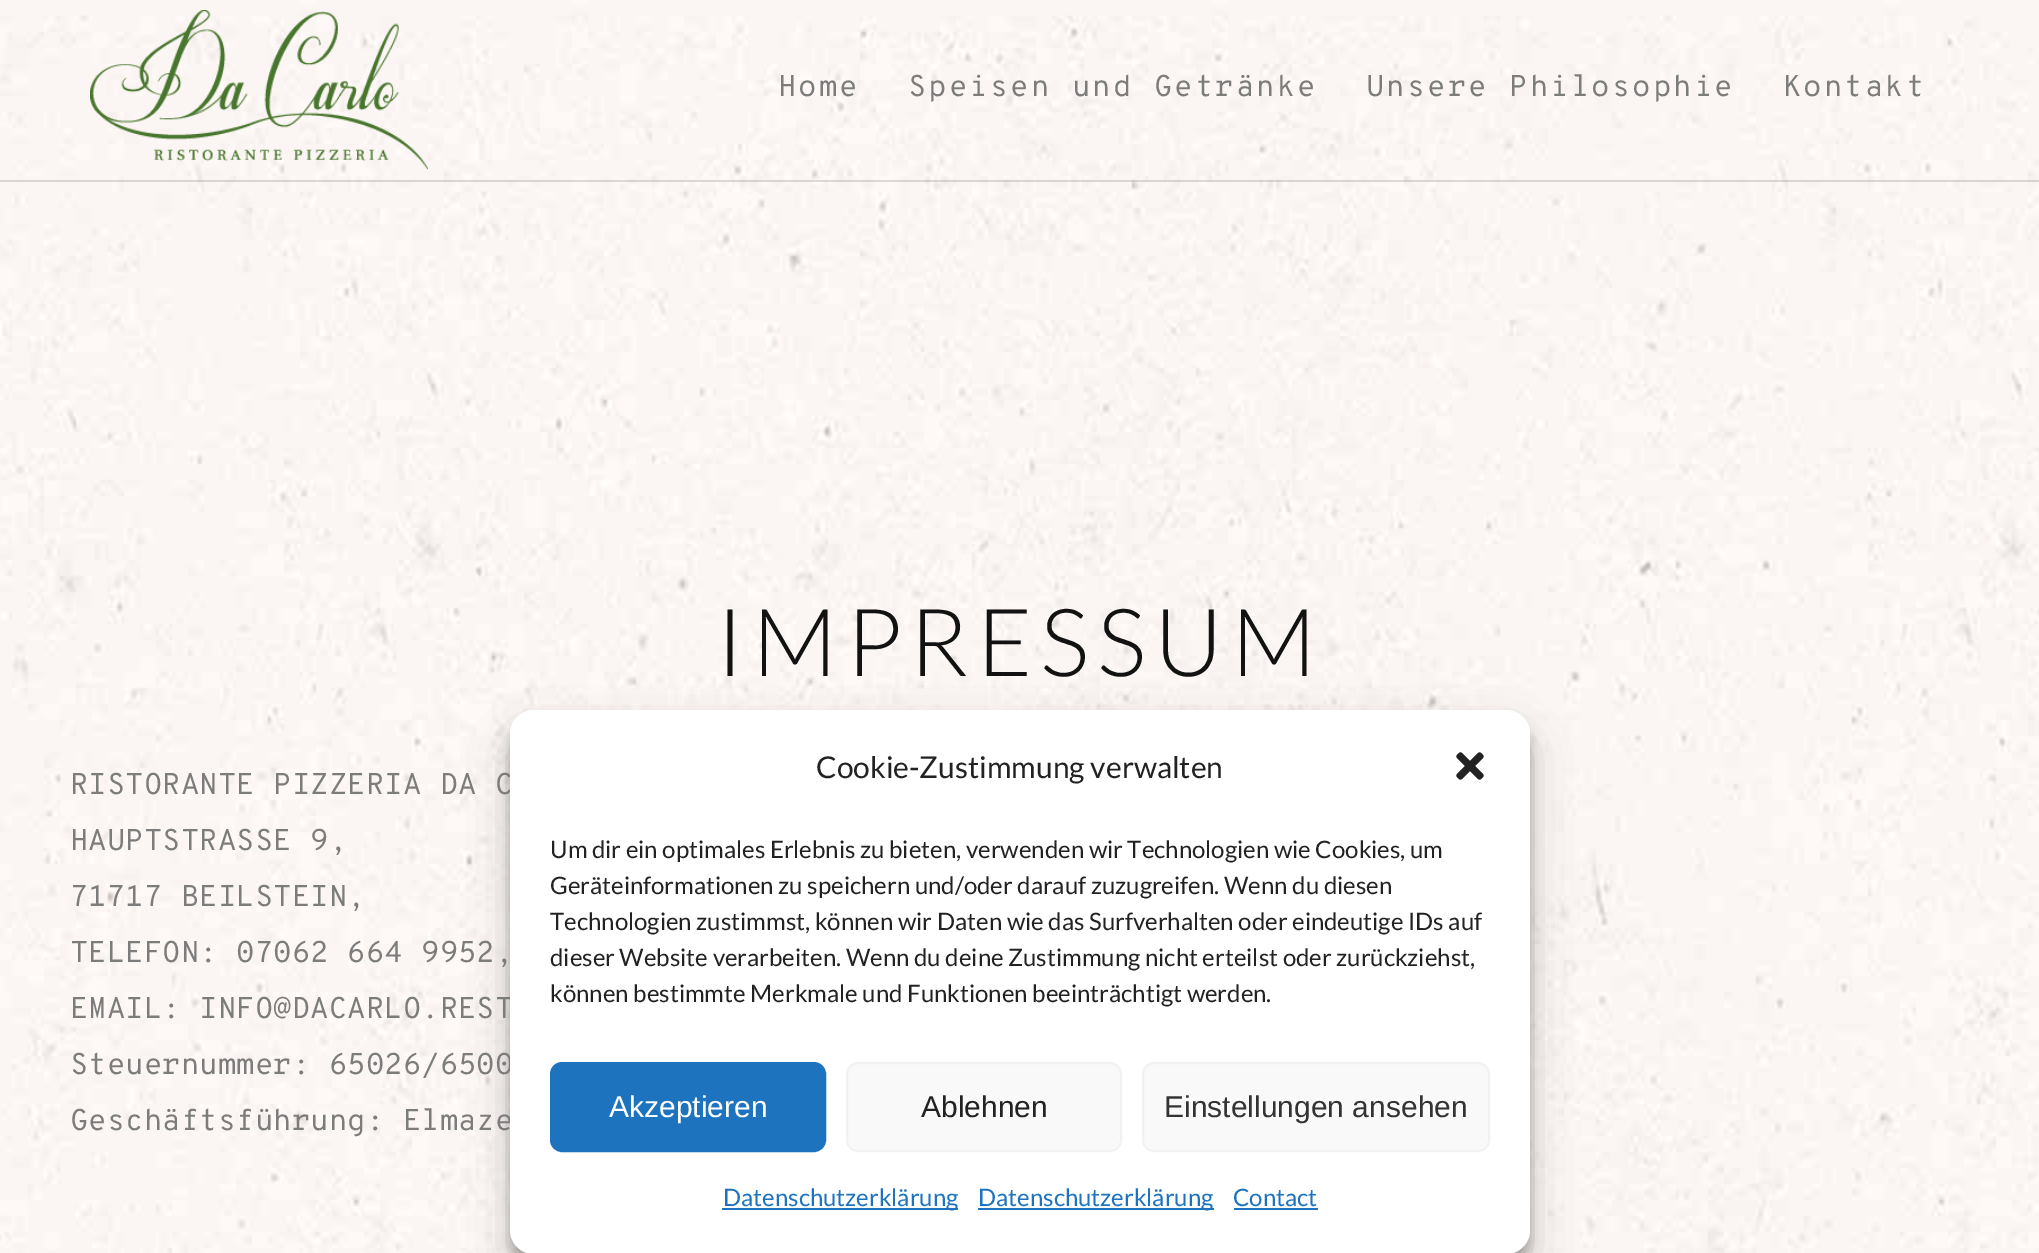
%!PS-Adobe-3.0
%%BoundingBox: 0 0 2039 1253
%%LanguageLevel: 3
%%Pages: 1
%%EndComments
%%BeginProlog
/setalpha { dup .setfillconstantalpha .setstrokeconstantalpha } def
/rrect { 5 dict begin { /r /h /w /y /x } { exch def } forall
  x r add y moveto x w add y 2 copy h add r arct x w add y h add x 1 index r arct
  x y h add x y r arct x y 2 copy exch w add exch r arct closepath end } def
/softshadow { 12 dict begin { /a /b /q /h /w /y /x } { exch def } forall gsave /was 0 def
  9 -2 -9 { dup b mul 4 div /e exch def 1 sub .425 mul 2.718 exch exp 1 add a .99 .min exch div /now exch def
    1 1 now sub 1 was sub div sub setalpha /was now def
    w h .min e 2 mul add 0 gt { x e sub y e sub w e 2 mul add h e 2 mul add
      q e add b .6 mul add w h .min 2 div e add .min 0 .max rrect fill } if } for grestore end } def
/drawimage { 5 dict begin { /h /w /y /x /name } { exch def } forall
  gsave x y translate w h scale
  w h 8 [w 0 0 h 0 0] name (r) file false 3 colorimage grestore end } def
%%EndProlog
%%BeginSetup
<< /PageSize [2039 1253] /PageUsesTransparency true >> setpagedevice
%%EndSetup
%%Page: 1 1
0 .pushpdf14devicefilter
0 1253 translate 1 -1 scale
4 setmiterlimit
1 setgray
0 0 2039 1253 rectfill
(images/1.raw) 0 0 2039 1253 drawimage
0.15 setalpha
0.098 setgray
0 180 2039 2 rectfill
1 setalpha
(images/2.raw) 90 10 338 160 drawimage
0 setgray
510 722 1020 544 24 6 0.23 softshadow
510 730 1020 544 24 20 0.19 softshadow
/OverpassMono-Regular [30 0 0 -30 0 0] selectfont
0.486 setgray
778 96 moveto 2 0 (Home) ashow
908 96 moveto 2 0 (Speisen und Getränke) ashow
1366 96 moveto 2 0 (Unsere Philosophie) ashow
1783 96 moveto 2 0 (Kontakt) ashow
/Lato-Light [94 0 0 -94 0 0] selectfont
0.071 setgray
716 676 moveto 8 0 (IMPRESSUM) ashow
/OverpassMono-Regular [30 0 0 -30 0 0] selectfont
0.486 setgray
70 794 moveto (RISTORANTE PIZZERIA DA C) show
70 850 moveto (HAUPTSTRASSE 9,) show
70 906 moveto (71717 BEILSTEIN,) show
70 962 moveto (TELEFON: 07062 664 9952,) show
70 1018 moveto (EMAIL: INFO@DACARLO.REST) show
70 1074 moveto (Steuernummer: 65026/6500) show
70 1130 moveto (Geschäftsführung: Elmaze) show
1 setgray
510 710 1020 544 24 rrect fill
/Lato-Regular [30 0 0 -30 0 0] selectfont
0.133 setgray
816 778 moveto (Cookie-Zustimmung verwalten) show
(images/3.raw) 1456 752 28 28 drawimage
/Lato-Regular [24 0 0 -24 0 0] selectfont
550 858 moveto (Um dir ein optimales Erlebnis zu bieten, verwenden wir Technologien wie Cookies, um) show
550 894 moveto (Geräteinformationen zu speichern und/oder darauf zuzugreifen. Wenn du diesen) show
550 930 moveto (Technologien zustimmst, können wir Daten wie das Surfverhalten oder eindeutige IDs auf) show
550 966 moveto (dieser Website verarbeiten. Wenn du deine Zustimmung nicht erteilst oder zurückziehst,) show
550 1002 moveto (können bestimmte Merkmale und Funktionen beeinträchtigt werden.) show
0.118 0.451 0.745 setrgbcolor
551 1063 274 88 11 rrect gsave fill grestore
2 setlinewidth
stroke
/LiberationSans-Regular [30 0 0 -30 0 0] selectfont
1 setgray
609 1117 moveto (Akzeptieren) show
0.976 setgray
847 1063 274 88 11 rrect gsave fill grestore
0.949 setgray
stroke
0.133 setgray
921 1117 moveto (Ablehnen) show
0.976 setgray
1143 1063 346 88 11 rrect gsave fill grestore
0.949 setgray
stroke
0.2 setgray
1164 1117 moveto (Einstellungen ansehen) show
0.118 0.451 0.745 setrgbcolor
722 1208 236 2 rectfill
/Lato-Regular [24 0 0 -24 0 0] selectfont
723 1206 moveto (Datenschutzerklärung) show
978 1208 236 2 rectfill
978 1206 moveto (Datenschutzerklärung) show
1233 1206 moveto (Contact) show
1234 1208 84 2 rectfill
.poppdf14devicefilter showpage
%%EOF
